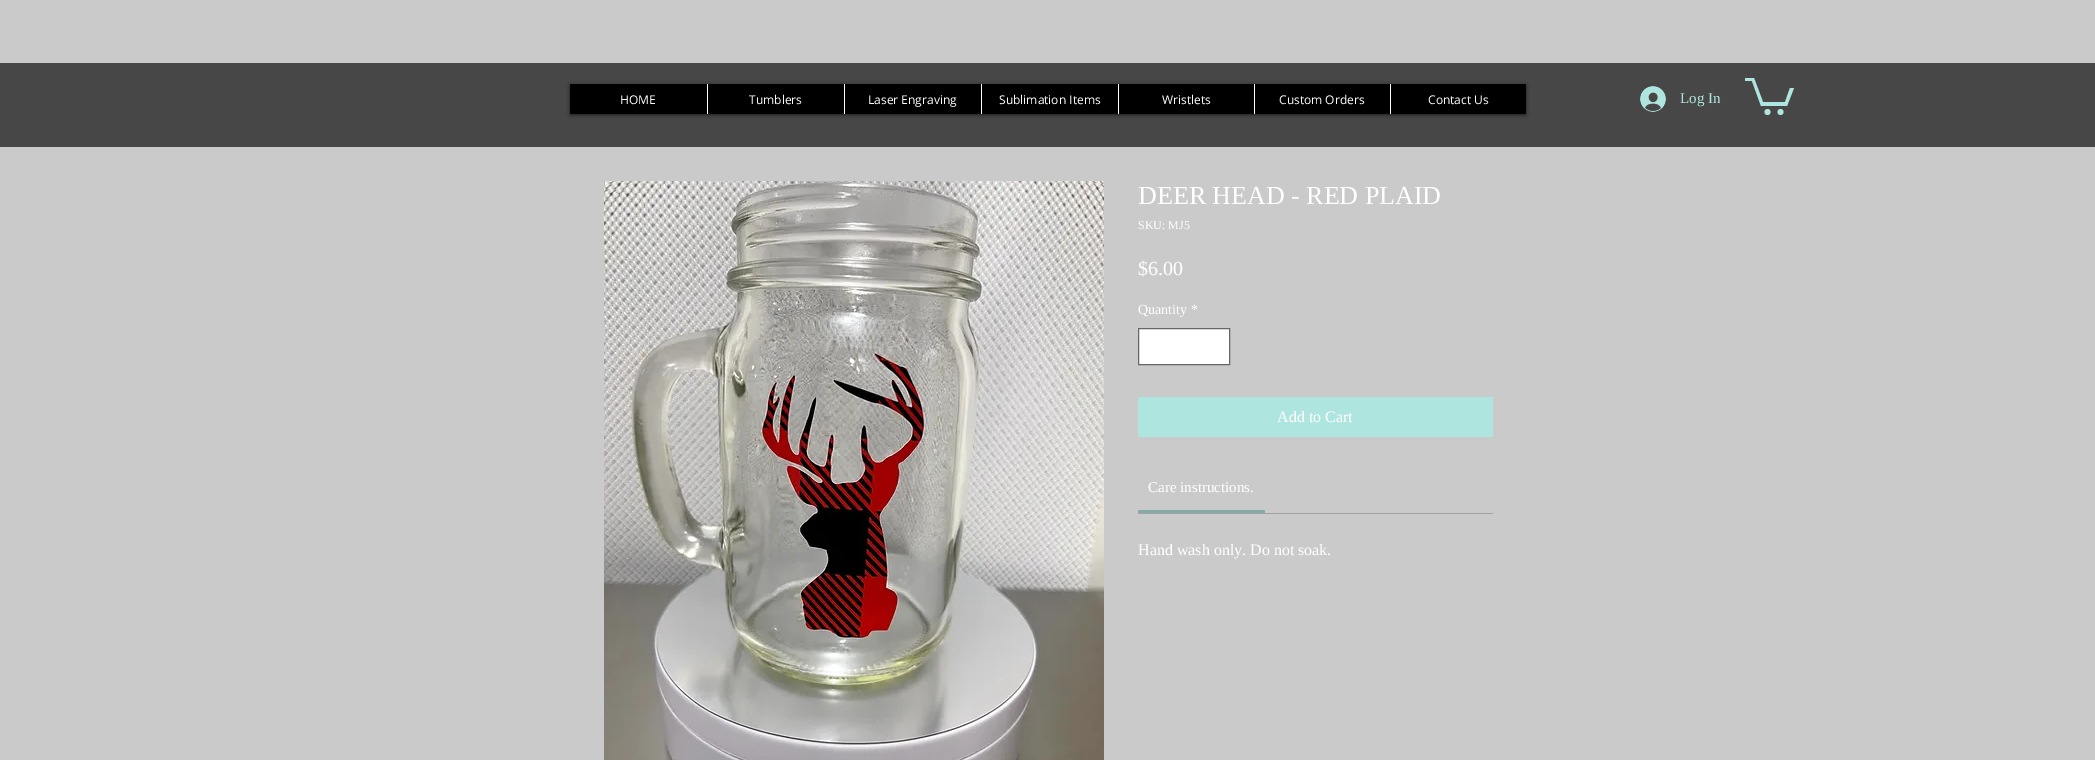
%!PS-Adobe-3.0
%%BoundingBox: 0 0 2095 760
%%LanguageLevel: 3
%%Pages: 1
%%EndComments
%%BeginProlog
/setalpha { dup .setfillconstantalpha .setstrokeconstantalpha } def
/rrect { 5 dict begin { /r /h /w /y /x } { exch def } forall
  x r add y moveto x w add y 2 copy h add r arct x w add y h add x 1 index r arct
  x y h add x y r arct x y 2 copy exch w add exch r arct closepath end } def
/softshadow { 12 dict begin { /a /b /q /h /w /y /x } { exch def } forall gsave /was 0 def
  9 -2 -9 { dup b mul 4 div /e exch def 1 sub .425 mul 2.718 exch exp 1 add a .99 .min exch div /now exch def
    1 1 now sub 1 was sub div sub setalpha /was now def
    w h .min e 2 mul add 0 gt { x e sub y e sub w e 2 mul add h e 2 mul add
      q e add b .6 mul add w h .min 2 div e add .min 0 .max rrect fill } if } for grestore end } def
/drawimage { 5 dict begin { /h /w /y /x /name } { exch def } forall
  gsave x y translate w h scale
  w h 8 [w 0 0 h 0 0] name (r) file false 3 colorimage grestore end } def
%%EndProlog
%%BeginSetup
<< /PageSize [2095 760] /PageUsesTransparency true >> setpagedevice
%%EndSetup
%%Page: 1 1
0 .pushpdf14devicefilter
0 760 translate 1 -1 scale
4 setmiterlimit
0.792 setgray
0 0 2095 760 rectfill
0.278 setgray
0 63 2095 84 rectfill
0 setgray
570 85 956 30 0 2 0.6 softshadow
570 84 956 30 rectfill
1 setgray
707 84 1 30 rectfill
844 84 1 30 rectfill
981 84 1 30 rectfill
1118 84 1 30 rectfill
1254 84 1 30 rectfill
1390 84 1 30 rectfill
(images/1.raw) 1640 86 26 26 drawimage
0.686 0.898 0.875 setrgbcolor
newpath 1794 88 moveto 1787 106 lineto 1761 106 lineto 1752 81 lineto 1745 81 lineto 1745 78 lineto 1754 78 lineto 1763 102 lineto 1785 102 lineto 1790 88 lineto fill
newpath 1780.5 112 3 0 360 arc closepath fill
newpath 1767.5 112 3 0 360 arc closepath fill
(images/2.raw) 604 181 500 579 drawimage
1 setgray
newpath 1138.5 328.5 moveto 1229.5 328.5 lineto 1229.5 364.5 lineto 1138.5 364.5 lineto closepath gsave fill grestore
0.4 setgray
stroke
0.686 0.898 0.875 setrgbcolor
1138 397 355 40 rectfill
0.635 setgray
1138 513 355 1 rectfill
0.514 0.675 0.655 setrgbcolor
1138 510 127 3 rectfill
/OpenSans-Regular [12 0 0 -12 0 0] selectfont
1 setgray
620 104 moveto (HOME) show
749 104 moveto (Tumblers) show
868 104 moveto (Laser Engraving) show
999 104 moveto (Sublimation Items) show
1162 104 moveto (Wristlets) show
1279 104 moveto (Custom Orders) show
1428 104 moveto (Contact Us) show
/LiberationSerif-Regular [15 0 0 -15 0 0] selectfont
0.686 0.898 0.875 setrgbcolor
1680 103 moveto (Log In) show
/LiberationSerif-Regular [26 0 0 -26 0 0] selectfont
1 setgray
1138 204 moveto (DEER HEAD - RED PLAID) show
/LiberationSerif-Regular [12 0 0 -12 0 0] selectfont
1138 229 moveto (SKU: MJ5) show
/LiberationSerif-Regular [20 0 0 -20 0 0] selectfont
1138 275 moveto ($6.00) show
/LiberationSerif-Regular [14 0 0 -14 0 0] selectfont
1138 314 moveto (Quantity) show
1191 314 moveto (*) show
/LiberationSerif-Regular [16 0 0 -16 0 0] selectfont
1277 422 moveto (Add to Cart) show
/LiberationSerif-Regular [15 0 0 -15 0 0] selectfont
1148 492 moveto (Care instructions.) show
/LiberationSerif-Regular [16 0 0 -16 0 0] selectfont
1138 555 moveto (Hand wash only. Do not soak.) show
.poppdf14devicefilter showpage
%%EOF
